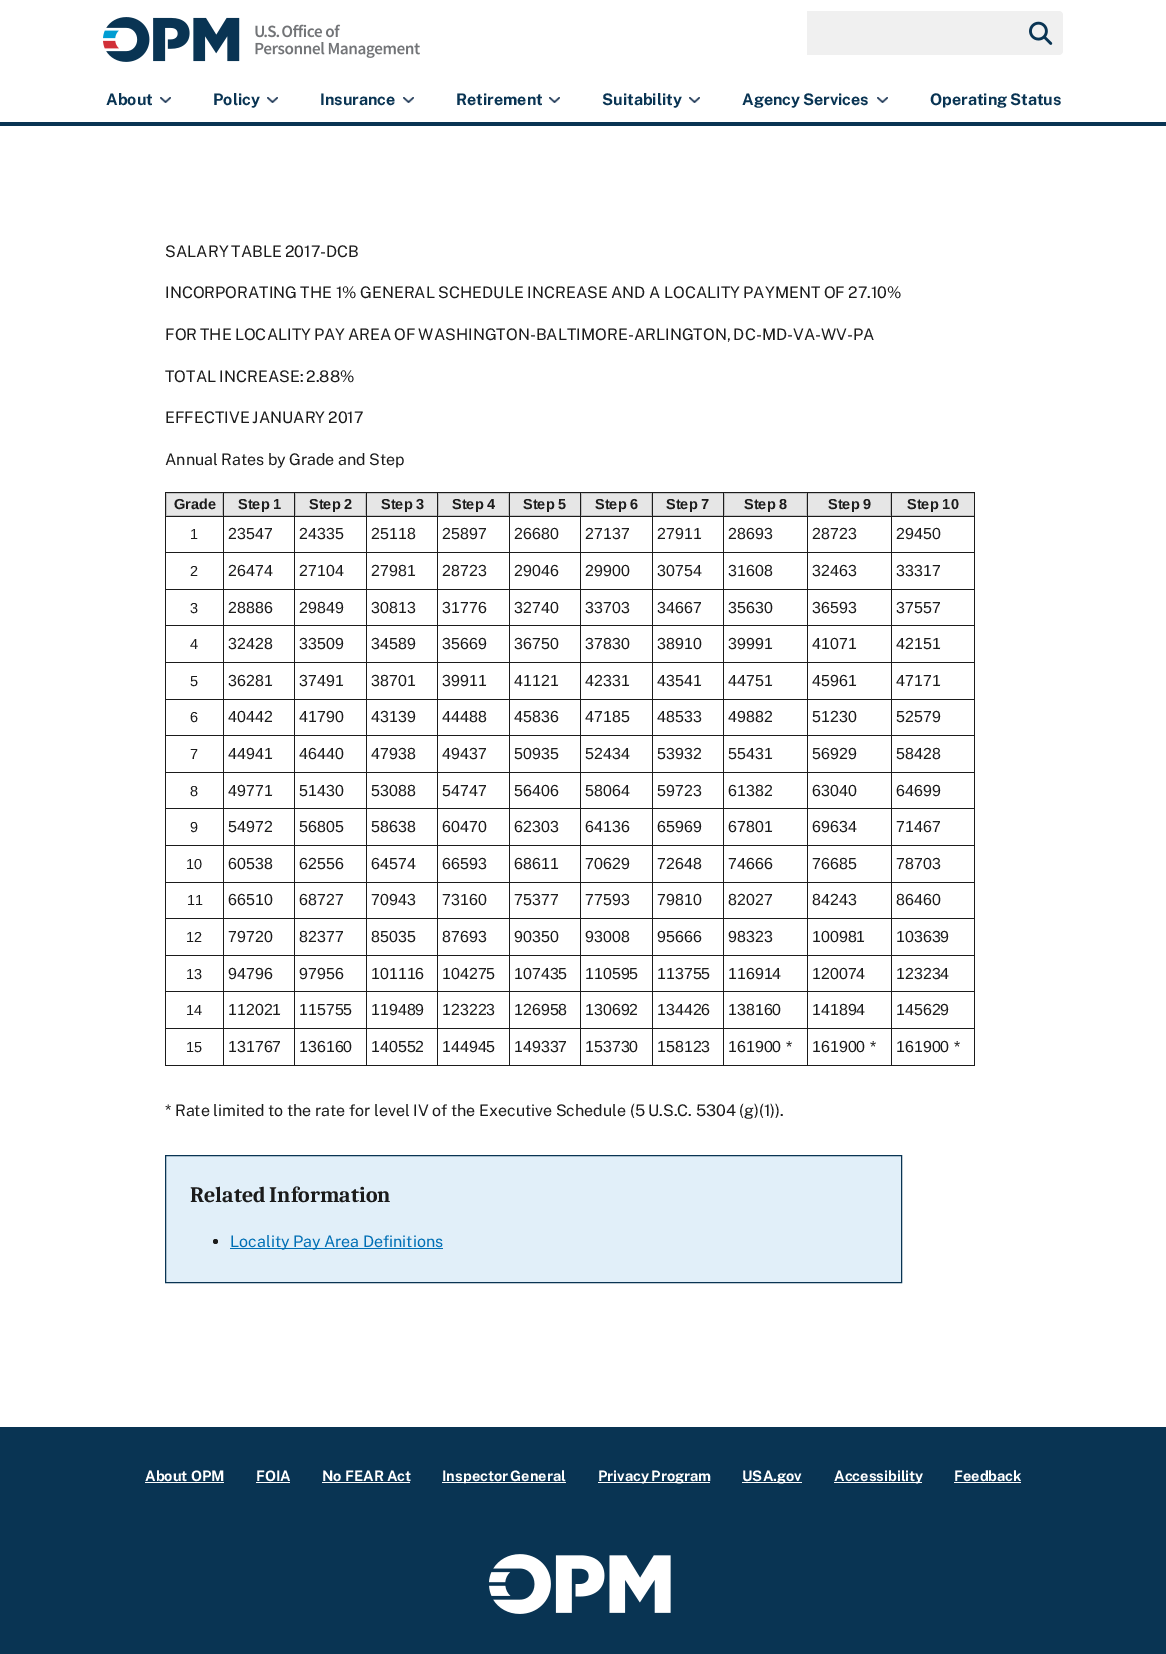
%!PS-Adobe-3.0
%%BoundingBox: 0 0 1166 1654
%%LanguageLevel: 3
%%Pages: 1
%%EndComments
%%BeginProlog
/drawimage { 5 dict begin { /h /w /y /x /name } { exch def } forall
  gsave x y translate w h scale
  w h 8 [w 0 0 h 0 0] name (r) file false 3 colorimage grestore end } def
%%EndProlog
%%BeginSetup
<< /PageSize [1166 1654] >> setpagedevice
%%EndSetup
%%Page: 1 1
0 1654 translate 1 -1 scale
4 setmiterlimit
1 setgray
0 0 1166 1654 rectfill
0.035 0.204 0.325 setrgbcolor
0 122 1166 4 rectfill
(images/1.raw) 103 17 317 45 drawimage
0.941 setgray
807 11 208 44 rectfill
newpath 1015 11 moveto 1059 11 lineto 1061 11 1063 13 1063 15 curveto 1063 51 lineto 1063 53 1061 55 1059 55 curveto 1015 55 lineto closepath fill
(images/2.raw) 1029 21 24 24 drawimage
(images/3.raw) 160 97 11 6 drawimage
(images/3.raw) 267 97 11 6 drawimage
(images/3.raw) 403 97 11 6 drawimage
(images/3.raw) 549 97 11 6 drawimage
(images/3.raw) 689 97 11 6 drawimage
(images/3.raw) 877 97 11 6 drawimage
0.753 setgray
166 493 808 23 rectfill
0.902 setgray
167 494 55 21 rectfill
0.106 setgray
891 492 84 1 rectfill
891 516 84 1 rectfill
891 552 84 1 rectfill
891 589 84 1 rectfill
891 625 84 1 rectfill
891 662 84 1 rectfill
891 699 84 1 rectfill
891 735 84 1 rectfill
891 772 84 1 rectfill
891 808 84 1 rectfill
891 845 84 1 rectfill
891 882 84 1 rectfill
891 918 84 1 rectfill
891 955 84 1 rectfill
891 991 84 1 rectfill
891 1028 84 1 rectfill
974 1028 1 38 rectfill
891 1065 84 1 rectfill
891 1028 1 38 rectfill
807 1028 85 1 rectfill
891 991 1 38 rectfill
807 991 85 1 rectfill
891 955 1 37 rectfill
807 955 85 1 rectfill
891 918 1 38 rectfill
807 918 85 1 rectfill
891 882 1 37 rectfill
807 882 85 1 rectfill
891 845 1 38 rectfill
807 845 85 1 rectfill
891 808 1 38 rectfill
807 808 85 1 rectfill
891 772 1 37 rectfill
807 772 85 1 rectfill
891 735 1 38 rectfill
807 735 85 1 rectfill
891 699 1 37 rectfill
807 699 85 1 rectfill
891 662 1 38 rectfill
807 662 85 1 rectfill
891 625 1 38 rectfill
807 625 85 1 rectfill
891 589 1 37 rectfill
807 589 85 1 rectfill
891 552 1 38 rectfill
807 552 85 1 rectfill
891 516 1 37 rectfill
807 516 85 1 rectfill
891 492 1 25 rectfill
807 492 85 1 rectfill
807 1065 85 1 rectfill
807 1028 1 38 rectfill
723 1028 85 1 rectfill
807 991 1 38 rectfill
723 991 85 1 rectfill
807 955 1 37 rectfill
723 955 85 1 rectfill
807 918 1 38 rectfill
723 918 85 1 rectfill
807 882 1 37 rectfill
723 882 85 1 rectfill
807 845 1 38 rectfill
723 845 85 1 rectfill
807 808 1 38 rectfill
723 808 85 1 rectfill
807 772 1 37 rectfill
723 772 85 1 rectfill
807 735 1 38 rectfill
723 735 85 1 rectfill
807 699 1 37 rectfill
723 699 85 1 rectfill
807 662 1 38 rectfill
723 662 85 1 rectfill
807 625 1 38 rectfill
723 625 85 1 rectfill
807 589 1 37 rectfill
723 589 85 1 rectfill
807 552 1 38 rectfill
723 552 85 1 rectfill
807 516 1 37 rectfill
723 516 85 1 rectfill
807 492 1 25 rectfill
723 492 85 1 rectfill
723 1065 85 1 rectfill
723 1028 1 38 rectfill
652 1028 72 1 rectfill
723 991 1 38 rectfill
652 991 72 1 rectfill
723 955 1 37 rectfill
652 955 72 1 rectfill
723 918 1 38 rectfill
652 918 72 1 rectfill
723 882 1 37 rectfill
652 882 72 1 rectfill
723 845 1 38 rectfill
652 845 72 1 rectfill
723 808 1 38 rectfill
652 808 72 1 rectfill
723 772 1 37 rectfill
652 772 72 1 rectfill
723 735 1 38 rectfill
652 735 72 1 rectfill
723 699 1 37 rectfill
652 699 72 1 rectfill
723 662 1 38 rectfill
652 662 72 1 rectfill
723 625 1 38 rectfill
652 625 72 1 rectfill
723 589 1 37 rectfill
652 589 72 1 rectfill
723 552 1 38 rectfill
652 552 72 1 rectfill
723 516 1 37 rectfill
652 516 72 1 rectfill
723 492 1 25 rectfill
652 492 72 1 rectfill
652 1065 72 1 rectfill
652 1028 1 38 rectfill
580 1028 73 1 rectfill
652 991 1 38 rectfill
580 991 73 1 rectfill
652 955 1 37 rectfill
580 955 73 1 rectfill
652 918 1 38 rectfill
580 918 73 1 rectfill
652 882 1 37 rectfill
580 882 73 1 rectfill
652 845 1 38 rectfill
580 845 73 1 rectfill
652 808 1 38 rectfill
580 808 73 1 rectfill
652 772 1 37 rectfill
580 772 73 1 rectfill
652 735 1 38 rectfill
580 735 73 1 rectfill
652 699 1 37 rectfill
580 699 73 1 rectfill
652 662 1 38 rectfill
580 662 73 1 rectfill
652 625 1 38 rectfill
580 625 73 1 rectfill
652 589 1 37 rectfill
580 589 73 1 rectfill
652 552 1 38 rectfill
580 552 73 1 rectfill
652 516 1 37 rectfill
580 516 73 1 rectfill
652 492 1 25 rectfill
580 492 73 1 rectfill
580 1065 73 1 rectfill
580 1028 1 38 rectfill
509 1028 72 1 rectfill
580 991 1 38 rectfill
509 991 72 1 rectfill
580 955 1 37 rectfill
509 955 72 1 rectfill
580 918 1 38 rectfill
509 918 72 1 rectfill
580 882 1 37 rectfill
509 882 72 1 rectfill
580 845 1 38 rectfill
509 845 72 1 rectfill
580 808 1 38 rectfill
509 808 72 1 rectfill
580 772 1 37 rectfill
509 772 72 1 rectfill
580 735 1 38 rectfill
509 735 72 1 rectfill
580 699 1 37 rectfill
509 699 72 1 rectfill
580 662 1 38 rectfill
509 662 72 1 rectfill
580 625 1 38 rectfill
509 625 72 1 rectfill
580 589 1 37 rectfill
509 589 72 1 rectfill
580 552 1 38 rectfill
509 552 72 1 rectfill
580 516 1 37 rectfill
509 516 72 1 rectfill
580 492 1 25 rectfill
509 492 72 1 rectfill
509 1065 72 1 rectfill
509 1028 1 38 rectfill
437 1028 73 1 rectfill
509 991 1 38 rectfill
437 991 73 1 rectfill
509 955 1 37 rectfill
437 955 73 1 rectfill
509 918 1 38 rectfill
437 918 73 1 rectfill
509 882 1 37 rectfill
437 882 73 1 rectfill
509 845 1 38 rectfill
437 845 73 1 rectfill
509 808 1 38 rectfill
437 808 73 1 rectfill
509 772 1 37 rectfill
437 772 73 1 rectfill
509 735 1 38 rectfill
437 735 73 1 rectfill
509 699 1 37 rectfill
437 699 73 1 rectfill
509 662 1 38 rectfill
437 662 73 1 rectfill
509 625 1 38 rectfill
437 625 73 1 rectfill
509 589 1 37 rectfill
437 589 73 1 rectfill
509 552 1 38 rectfill
437 552 73 1 rectfill
509 516 1 37 rectfill
437 516 73 1 rectfill
509 492 1 25 rectfill
437 492 73 1 rectfill
437 1065 73 1 rectfill
437 1028 1 38 rectfill
366 1028 72 1 rectfill
437 991 1 38 rectfill
366 991 72 1 rectfill
437 955 1 37 rectfill
366 955 72 1 rectfill
437 918 1 38 rectfill
366 918 72 1 rectfill
437 882 1 37 rectfill
366 882 72 1 rectfill
437 845 1 38 rectfill
366 845 72 1 rectfill
437 808 1 38 rectfill
366 808 72 1 rectfill
437 772 1 37 rectfill
366 772 72 1 rectfill
437 735 1 38 rectfill
366 735 72 1 rectfill
437 699 1 37 rectfill
366 699 72 1 rectfill
437 662 1 38 rectfill
366 662 72 1 rectfill
437 625 1 38 rectfill
366 625 72 1 rectfill
437 589 1 37 rectfill
366 589 72 1 rectfill
437 552 1 38 rectfill
366 552 72 1 rectfill
437 516 1 37 rectfill
366 516 72 1 rectfill
437 492 1 25 rectfill
366 492 72 1 rectfill
366 1065 72 1 rectfill
366 1028 1 38 rectfill
294 1028 73 1 rectfill
366 991 1 38 rectfill
294 991 73 1 rectfill
366 955 1 37 rectfill
294 955 73 1 rectfill
366 918 1 38 rectfill
294 918 73 1 rectfill
366 882 1 37 rectfill
294 882 73 1 rectfill
366 845 1 38 rectfill
294 845 73 1 rectfill
366 808 1 38 rectfill
294 808 73 1 rectfill
366 772 1 37 rectfill
294 772 73 1 rectfill
366 735 1 38 rectfill
294 735 73 1 rectfill
366 699 1 37 rectfill
294 699 73 1 rectfill
366 662 1 38 rectfill
294 662 73 1 rectfill
366 625 1 38 rectfill
294 625 73 1 rectfill
366 589 1 37 rectfill
294 589 73 1 rectfill
366 552 1 38 rectfill
294 552 73 1 rectfill
366 516 1 37 rectfill
294 516 73 1 rectfill
366 492 1 25 rectfill
294 492 73 1 rectfill
294 1065 73 1 rectfill
294 1028 1 38 rectfill
223 1028 72 1 rectfill
294 991 1 38 rectfill
223 991 72 1 rectfill
294 955 1 37 rectfill
223 955 72 1 rectfill
294 918 1 38 rectfill
223 918 72 1 rectfill
294 882 1 37 rectfill
223 882 72 1 rectfill
294 845 1 38 rectfill
223 845 72 1 rectfill
294 808 1 38 rectfill
223 808 72 1 rectfill
294 772 1 37 rectfill
223 772 72 1 rectfill
294 735 1 38 rectfill
223 735 72 1 rectfill
294 699 1 37 rectfill
223 699 72 1 rectfill
294 662 1 38 rectfill
223 662 72 1 rectfill
294 625 1 38 rectfill
223 625 72 1 rectfill
294 589 1 37 rectfill
223 589 72 1 rectfill
294 552 1 38 rectfill
223 552 72 1 rectfill
294 516 1 37 rectfill
223 516 72 1 rectfill
294 492 1 25 rectfill
223 492 72 1 rectfill
223 1065 72 1 rectfill
223 1028 1 38 rectfill
165 1028 59 1 rectfill
223 991 1 38 rectfill
165 991 59 1 rectfill
223 955 1 37 rectfill
165 955 59 1 rectfill
223 918 1 38 rectfill
165 918 59 1 rectfill
223 882 1 37 rectfill
165 882 59 1 rectfill
223 845 1 38 rectfill
165 845 59 1 rectfill
223 808 1 38 rectfill
165 808 59 1 rectfill
223 772 1 37 rectfill
165 772 59 1 rectfill
223 735 1 38 rectfill
165 735 59 1 rectfill
223 699 1 37 rectfill
165 699 59 1 rectfill
223 662 1 38 rectfill
165 662 59 1 rectfill
223 625 1 38 rectfill
165 625 59 1 rectfill
223 589 1 37 rectfill
165 589 59 1 rectfill
223 552 1 38 rectfill
165 552 59 1 rectfill
223 516 1 37 rectfill
165 516 59 1 rectfill
223 492 1 25 rectfill
165 492 59 1 rectfill
165 1065 59 1 rectfill
165 1028 1 38 rectfill
165 991 1 38 rectfill
165 955 1 37 rectfill
165 918 1 38 rectfill
165 882 1 37 rectfill
165 845 1 38 rectfill
165 808 1 38 rectfill
165 772 1 37 rectfill
165 735 1 38 rectfill
165 699 1 37 rectfill
165 662 1 38 rectfill
165 625 1 38 rectfill
165 589 1 37 rectfill
165 552 1 38 rectfill
165 516 1 37 rectfill
165 492 1 25 rectfill
0.902 setgray
224 494 70 21 rectfill
296 494 69 21 rectfill
367 494 70 21 rectfill
439 494 69 21 rectfill
510 494 70 21 rectfill
582 494 69 21 rectfill
653 494 70 21 rectfill
725 494 81 21 rectfill
808 494 82 21 rectfill
892 494 82 21 rectfill
0.106 setgray
974 991 1 38 rectfill
974 955 1 37 rectfill
974 918 1 38 rectfill
974 882 1 37 rectfill
974 845 1 38 rectfill
974 808 1 38 rectfill
974 772 1 37 rectfill
974 735 1 38 rectfill
974 699 1 37 rectfill
974 662 1 38 rectfill
974 625 1 38 rectfill
974 589 1 37 rectfill
974 552 1 38 rectfill
974 516 1 37 rectfill
974 492 1 25 rectfill
0.882 0.937 0.976 setrgbcolor
newpath 165.5 1155.5 moveto 901.5 1155.5 lineto 901.5 1282.5 lineto 165.5 1282.5 lineto closepath gsave fill grestore
0.035 0.204 0.325 setrgbcolor
stroke
0.106 setgray
newpath 215.5 1241.5 2.5 0 360 arc closepath fill
0 0.435 0.71 setrgbcolor
230 1248 213 1 rectfill
0.035 0.204 0.325 setrgbcolor
0 1427 1166 227 rectfill
1 setgray
145 1482 79 1 rectfill
256 1482 34 1 rectfill
322 1482 88 1 rectfill
442 1482 124 1 rectfill
598 1482 112 1 rectfill
742 1482 60 1 rectfill
834 1482 88 1 rectfill
954 1482 67 1 rectfill
(images/4.raw) 489 1554 182 60 drawimage
/PublicSans-Bold [16 0 0 -16 0 0] selectfont
0.035 0.204 0.325 setrgbcolor
106 105 moveto (About) show
213 105 moveto (Policy) show
320 105 moveto (Insurance) show
456 105 moveto (Retirement) show
602 105 moveto (Suitability) show
742 105 moveto -1 0 32 (Agency Services) widthshow
930 105 moveto -1 0 32 (Operating Status) widthshow
/PublicSans-Regular [16 0 0 -16 0 0] selectfont
0.106 setgray
165 257 moveto -1 0 32 (SALARY TABLE 2017-DCB) widthshow
165 298 moveto -0.5 0 32 (INCORPORATING THE 1% GENERAL SCHEDULE INCREASE AND A LOCALITY PAYMENT OF 27.10%) widthshow
165 340 moveto -1 0 32 (FOR THE LOCALITY PAY AREA OF WASHINGTON-BALTIMORE-ARLINGTON, DC-MD-VA-WV-PA) widthshow
165 382 moveto -1 0 32 (TOTAL INCREASE: 2.88%) widthshow
165 423 moveto -1 0 32 (EFFECTIVE JANUARY 2017) widthshow
165 465 moveto -0.5 0 32 (Annual Rates by Grade and Step) widthshow
/LiberationSans-Bold [14.5 0 0 -14.5 0 0] selectfont
174 509 moveto (Grade) show
238 509 moveto (Step 1) show
309 509 moveto (Step 2) show
381 509 moveto (Step 3) show
452 509 moveto (Step 4) show
523 509 moveto (Step 5) show
595 509 moveto (Step 6) show
666 509 moveto (Step 7) show
744 509 moveto (Step 8) show
828 509 moveto (Step 9) show
907 509 moveto (Step 10) show
/LiberationSans-Regular [14.5 0 0 -14.5 0 0] selectfont
190 539 moveto (1) show
/LiberationSans-Regular [16 0 0 -16 0 0] selectfont
228 539 moveto (23547) show
299 539 moveto (24335) show
371 539 moveto (25118) show
442 539 moveto (25897) show
514 539 moveto (26680) show
585 539 moveto (27137) show
657 539 moveto (27911) show
728 539 moveto (28693) show
812 539 moveto (28723) show
896 539 moveto (29450) show
/LiberationSans-Regular [14.5 0 0 -14.5 0 0] selectfont
190 576 moveto (2) show
/LiberationSans-Regular [16 0 0 -16 0 0] selectfont
228 576 moveto (26474) show
299 576 moveto (27104) show
371 576 moveto (27981) show
442 576 moveto (28723) show
514 576 moveto (29046) show
585 576 moveto (29900) show
657 576 moveto (30754) show
728 576 moveto (31608) show
812 576 moveto (32463) show
896 576 moveto (33317) show
/LiberationSans-Regular [14.5 0 0 -14.5 0 0] selectfont
190 613 moveto (3) show
/LiberationSans-Regular [16 0 0 -16 0 0] selectfont
228 613 moveto (28886) show
299 613 moveto (29849) show
371 613 moveto (30813) show
442 613 moveto (31776) show
514 613 moveto (32740) show
585 613 moveto (33703) show
657 613 moveto (34667) show
728 613 moveto (35630) show
812 613 moveto (36593) show
896 613 moveto (37557) show
/LiberationSans-Regular [14.5 0 0 -14.5 0 0] selectfont
190 649 moveto (4) show
/LiberationSans-Regular [16 0 0 -16 0 0] selectfont
228 649 moveto (32428) show
299 649 moveto (33509) show
371 649 moveto (34589) show
442 649 moveto (35669) show
514 649 moveto (36750) show
585 649 moveto (37830) show
657 649 moveto (38910) show
728 649 moveto (39991) show
812 649 moveto (41071) show
896 649 moveto (42151) show
/LiberationSans-Regular [14.5 0 0 -14.5 0 0] selectfont
190 686 moveto (5) show
/LiberationSans-Regular [16 0 0 -16 0 0] selectfont
228 686 moveto (36281) show
299 686 moveto (37491) show
371 686 moveto (38701) show
442 686 moveto (39911) show
514 686 moveto (41121) show
585 686 moveto (42331) show
657 686 moveto (43541) show
728 686 moveto (44751) show
812 686 moveto (45961) show
896 686 moveto (47171) show
/LiberationSans-Regular [14.5 0 0 -14.5 0 0] selectfont
190 722 moveto (6) show
/LiberationSans-Regular [16 0 0 -16 0 0] selectfont
228 722 moveto (40442) show
299 722 moveto (41790) show
371 722 moveto (43139) show
442 722 moveto (44488) show
514 722 moveto (45836) show
585 722 moveto (47185) show
657 722 moveto (48533) show
728 722 moveto (49882) show
812 722 moveto (51230) show
896 722 moveto (52579) show
/LiberationSans-Regular [14.5 0 0 -14.5 0 0] selectfont
190 759 moveto (7) show
/LiberationSans-Regular [16 0 0 -16 0 0] selectfont
228 759 moveto (44941) show
299 759 moveto (46440) show
371 759 moveto (47938) show
442 759 moveto (49437) show
514 759 moveto (50935) show
585 759 moveto (52434) show
657 759 moveto (53932) show
728 759 moveto (55431) show
812 759 moveto (56929) show
896 759 moveto (58428) show
/LiberationSans-Regular [14.5 0 0 -14.5 0 0] selectfont
190 796 moveto (8) show
/LiberationSans-Regular [16 0 0 -16 0 0] selectfont
228 796 moveto (49771) show
299 796 moveto (51430) show
371 796 moveto (53088) show
442 796 moveto (54747) show
514 796 moveto (56406) show
585 796 moveto (58064) show
657 796 moveto (59723) show
728 796 moveto (61382) show
812 796 moveto (63040) show
896 796 moveto (64699) show
/LiberationSans-Regular [14.5 0 0 -14.5 0 0] selectfont
190 832 moveto (9) show
/LiberationSans-Regular [16 0 0 -16 0 0] selectfont
228 832 moveto (54972) show
299 832 moveto (56805) show
371 832 moveto (58638) show
442 832 moveto (60470) show
514 832 moveto (62303) show
585 832 moveto (64136) show
657 832 moveto (65969) show
728 832 moveto (67801) show
812 832 moveto (69634) show
896 832 moveto (71467) show
/LiberationSans-Regular [14.5 0 0 -14.5 0 0] selectfont
186 869 moveto (10) show
/LiberationSans-Regular [16 0 0 -16 0 0] selectfont
228 869 moveto (60538) show
299 869 moveto (62556) show
371 869 moveto (64574) show
442 869 moveto (66593) show
514 869 moveto (68611) show
585 869 moveto (70629) show
657 869 moveto (72648) show
728 869 moveto (74666) show
812 869 moveto (76685) show
896 869 moveto (78703) show
/LiberationSans-Regular [14.5 0 0 -14.5 0 0] selectfont
187 905 moveto (11) show
/LiberationSans-Regular [16 0 0 -16 0 0] selectfont
228 905 moveto (66510) show
299 905 moveto (68727) show
371 905 moveto (70943) show
442 905 moveto (73160) show
514 905 moveto (75377) show
585 905 moveto (77593) show
657 905 moveto (79810) show
728 905 moveto (82027) show
812 905 moveto (84243) show
896 905 moveto (86460) show
/LiberationSans-Regular [14.5 0 0 -14.5 0 0] selectfont
186 942 moveto (12) show
/LiberationSans-Regular [16 0 0 -16 0 0] selectfont
228 942 moveto (79720) show
299 942 moveto (82377) show
371 942 moveto (85035) show
442 942 moveto (87693) show
514 942 moveto (90350) show
585 942 moveto (93008) show
657 942 moveto (95666) show
728 942 moveto (98323) show
812 942 moveto (100981) show
896 942 moveto (103639) show
/LiberationSans-Regular [14.5 0 0 -14.5 0 0] selectfont
186 979 moveto (13) show
/LiberationSans-Regular [16 0 0 -16 0 0] selectfont
228 979 moveto (94796) show
299 979 moveto (97956) show
371 979 moveto (101116) show
442 979 moveto (104275) show
514 979 moveto (107435) show
585 979 moveto (110595) show
657 979 moveto (113755) show
728 979 moveto (116914) show
812 979 moveto (120074) show
896 979 moveto (123234) show
/LiberationSans-Regular [14.5 0 0 -14.5 0 0] selectfont
186 1015 moveto (14) show
/LiberationSans-Regular [16 0 0 -16 0 0] selectfont
228 1015 moveto (112021) show
299 1015 moveto (115755) show
371 1015 moveto (119489) show
442 1015 moveto (123223) show
514 1015 moveto (126958) show
585 1015 moveto (130692) show
657 1015 moveto (134426) show
728 1015 moveto (138160) show
812 1015 moveto (141894) show
896 1015 moveto (145629) show
/LiberationSans-Regular [14.5 0 0 -14.5 0 0] selectfont
186 1052 moveto (15) show
/LiberationSans-Regular [16 0 0 -16 0 0] selectfont
228 1052 moveto (131767) show
299 1052 moveto (136160) show
371 1052 moveto (140552) show
442 1052 moveto (144945) show
514 1052 moveto (149337) show
585 1052 moveto (153730) show
657 1052 moveto (158123) show
728 1052 moveto (161900 *) show
812 1052 moveto (161900 *) show
896 1052 moveto (161900 *) show
/PublicSans-Regular [16 0 0 -16 0 0] selectfont
165 1116 moveto -0.4 0 32 (* Rate limited to the rate for level IV of the Executive Schedule \(5 U.S.C. 5304 \(g\)\(1\)\).) widthshow
/Caladea-Bold [22 0 0 -22 0 0] selectfont
190 1202 moveto -1 0 32 (Related Information) widthshow
/PublicSans-Regular [16 0 0 -16 0 0] selectfont
0 0.435 0.71 setrgbcolor
230 1247 moveto -0.5 0 32 (Locality Pay Area Definitions) widthshow
/PublicSans-Bold [14.5 0 0 -14.5 0 0] selectfont
1 setgray
145 1481 moveto (About OPM) show
256 1481 moveto (FOIA) show
322 1481 moveto (No FEAR Act) show
442 1481 moveto -1 0 32 (Inspector General) widthshow
598 1481 moveto -1 0 32 (Privacy Program) widthshow
742 1481 moveto (USA.gov) show
834 1481 moveto (Accessibility) show
954 1481 moveto (Feedback) show
showpage
%%EOF
